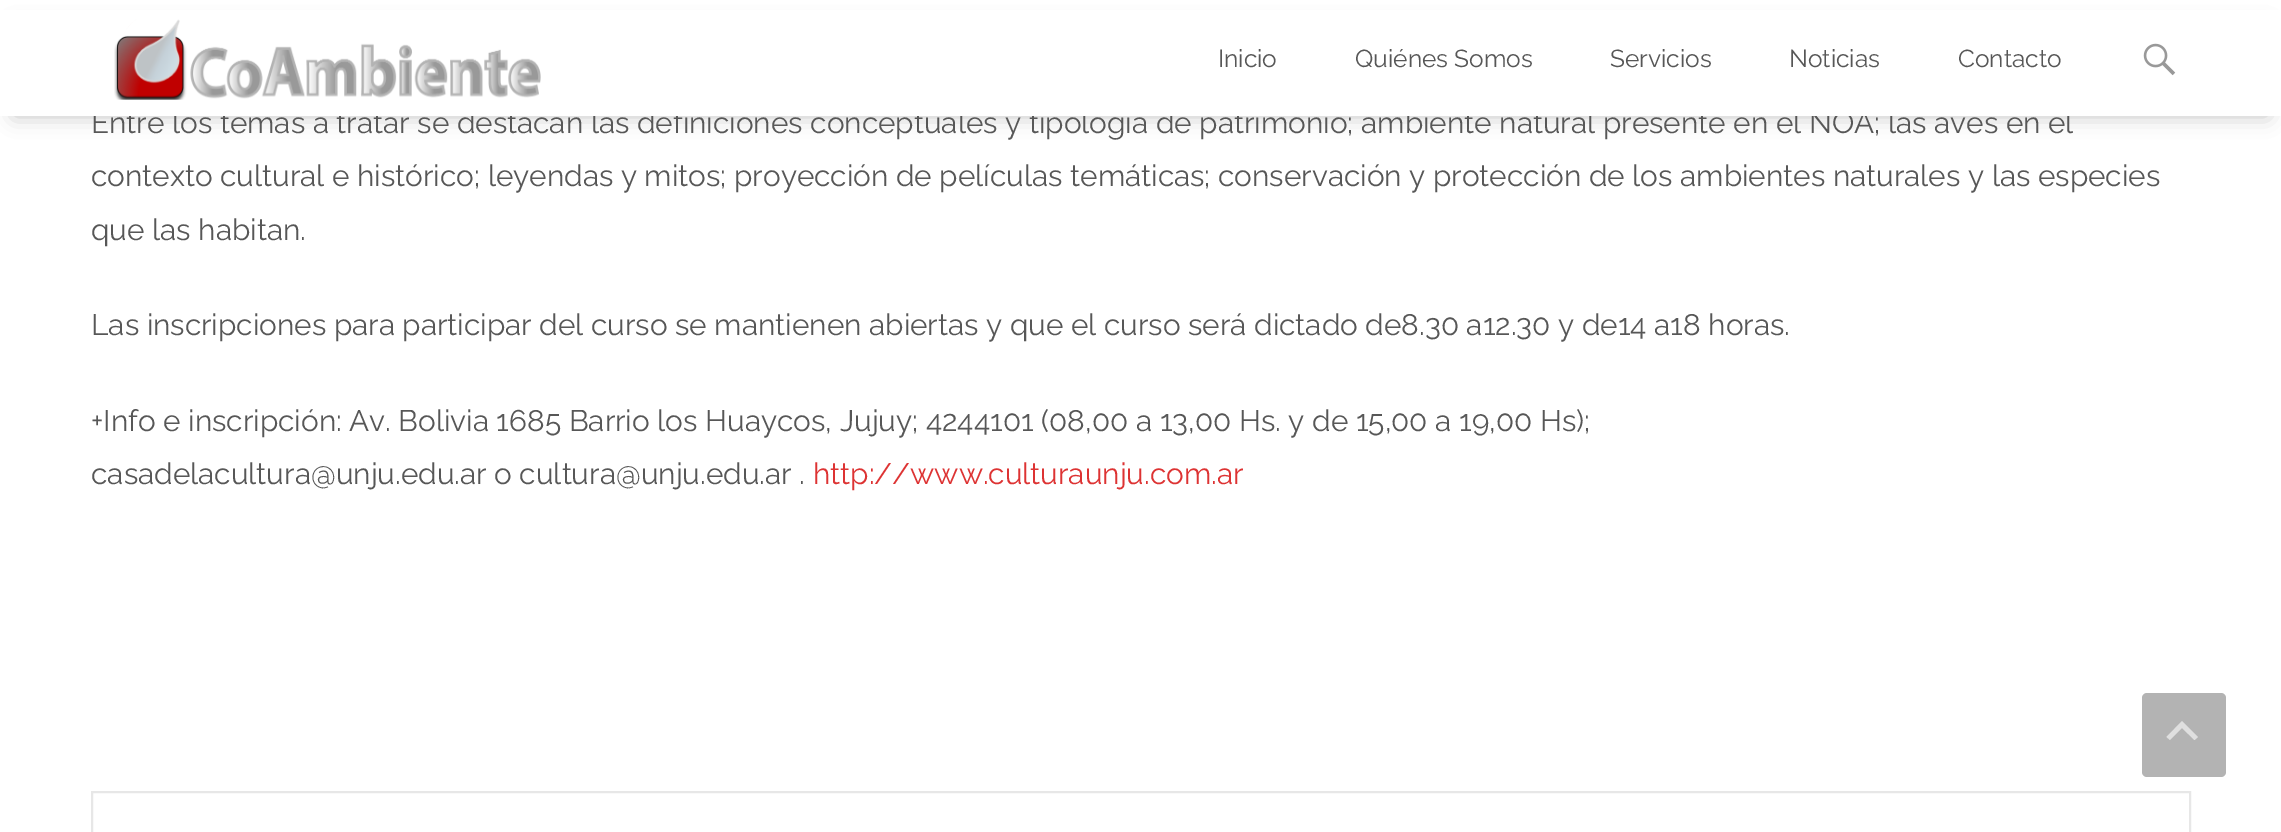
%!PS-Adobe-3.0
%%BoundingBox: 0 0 2281 832
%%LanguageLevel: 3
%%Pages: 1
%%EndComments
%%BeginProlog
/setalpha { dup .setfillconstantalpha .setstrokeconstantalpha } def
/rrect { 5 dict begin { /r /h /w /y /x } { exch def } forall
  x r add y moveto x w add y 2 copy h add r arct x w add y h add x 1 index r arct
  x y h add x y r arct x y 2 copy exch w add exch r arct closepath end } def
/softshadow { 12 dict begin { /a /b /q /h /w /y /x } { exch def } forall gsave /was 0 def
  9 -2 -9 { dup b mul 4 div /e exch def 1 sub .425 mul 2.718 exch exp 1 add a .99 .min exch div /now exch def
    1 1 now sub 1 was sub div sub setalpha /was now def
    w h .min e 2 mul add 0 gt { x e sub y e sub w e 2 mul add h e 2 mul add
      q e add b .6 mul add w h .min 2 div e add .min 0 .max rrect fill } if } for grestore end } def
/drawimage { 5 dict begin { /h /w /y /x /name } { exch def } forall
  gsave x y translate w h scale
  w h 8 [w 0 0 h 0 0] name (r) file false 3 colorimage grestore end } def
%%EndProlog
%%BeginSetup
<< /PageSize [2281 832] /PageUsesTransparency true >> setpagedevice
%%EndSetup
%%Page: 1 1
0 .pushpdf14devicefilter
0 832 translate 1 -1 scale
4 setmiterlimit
1 setgray
0 0 2281 832 rectfill
0 setgray
14 28 2254 88 0 10.5 0.24 softshadow
0.906 setgray
2 setlinewidth
92 792 2098 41 rectstroke
0.702 setgray
2142 693 84 84 5 rrect fill
0.875 setgray
newpath 2166.5 737 moveto 2182 721 lineto 2198 737 lineto 2194.5 740 lineto 2182 728 lineto 2170 740 lineto closepath fill
/Raleway-Regular [29.75 0 0 -29.75 0 0] selectfont
0.341 setgray
91 133 moveto (Entre los temas a tratar se destacan las definiciones conceptuales y tipología de patrimonio; ambiente natural presente en el NOA; las aves en el) show
1 setgray
0 10 2281 106 rectfill
(images/2.raw) 2143 43 33 33 drawimage
/Raleway-Regular [24.5 0 0 -24.5 0 0] selectfont
0.341 setgray
1958 67 moveto (Contacto) show
1789 67 moveto (Noticias) show
1610 67 moveto (Servicios) show
1355 67 moveto (Quiénes Somos) show
1218 67 moveto (Inicio) show
(images/1.raw) 114 19 427 81 drawimage
/Raleway-Regular [29.75 0 0 -29.75 0 0] selectfont
91 186 moveto (contexto cultural e histórico; leyendas y mitos; proyección de películas temáticas; conservación y protección de los ambientes naturales y las especies) show
91 240 moveto (que las habitan.) show
91 335 moveto (Las inscripciones para participar del curso se mantienen abiertas y que el curso será dictado de8.30 a12.30 y de14 a18 horas.) show
91 431 moveto (+Info e inscripción: Av. Bolivia 1685 Barrio los Huaycos, Jujuy; 4244101 \(08,00 a 13,00 Hs. y de 15,00 a 19,00 Hs\);) show
91 484 moveto (casadelacultura@unju.edu.ar o cultura@unju.edu.ar .) show
0.867 0.2 0.2 setrgbcolor
813 484 moveto (http://www.culturaunju.com.ar) show
.poppdf14devicefilter showpage
%%EOF
